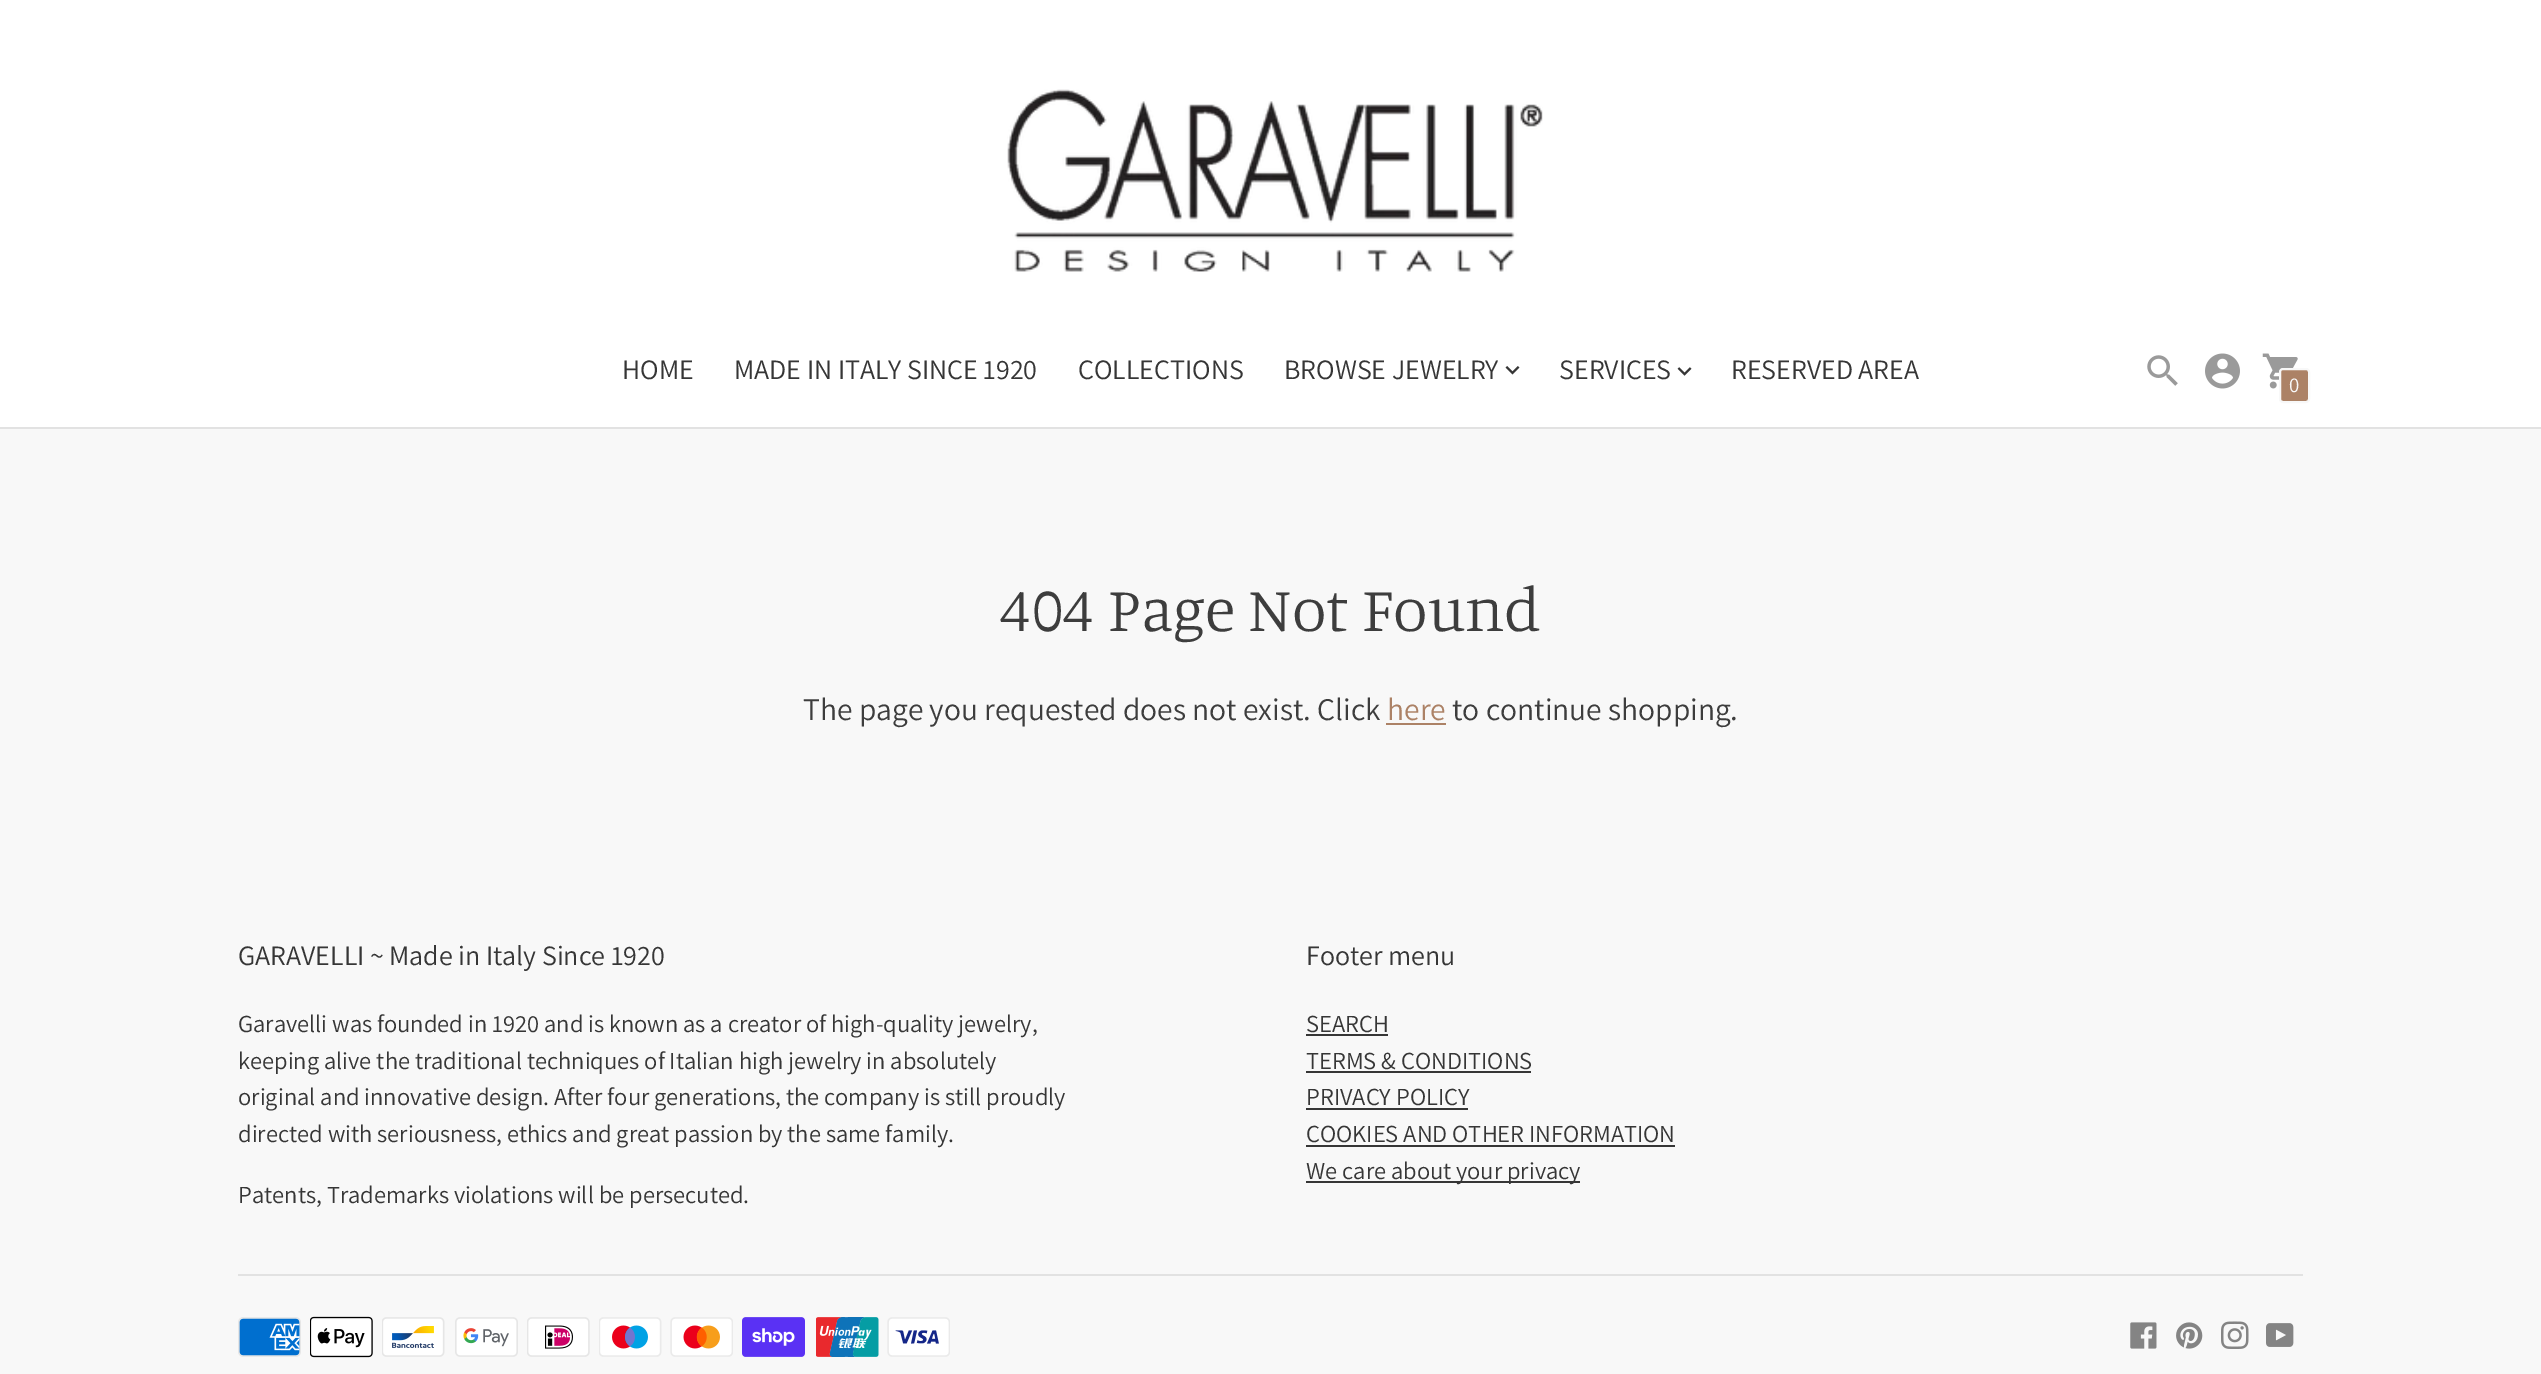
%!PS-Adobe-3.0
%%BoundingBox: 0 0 2541 1374
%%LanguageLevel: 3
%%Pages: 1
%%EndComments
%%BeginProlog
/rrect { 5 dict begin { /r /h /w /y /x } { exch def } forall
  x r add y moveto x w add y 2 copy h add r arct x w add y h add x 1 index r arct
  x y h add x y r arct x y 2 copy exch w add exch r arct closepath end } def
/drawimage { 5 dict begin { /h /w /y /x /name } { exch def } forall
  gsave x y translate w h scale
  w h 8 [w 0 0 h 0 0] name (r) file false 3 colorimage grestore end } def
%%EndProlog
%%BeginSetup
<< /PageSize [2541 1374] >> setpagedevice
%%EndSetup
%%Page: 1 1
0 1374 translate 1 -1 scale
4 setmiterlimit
0.973 setgray
0 0 2541 1374 rectfill
1 setgray
0 0 2541 427 rectfill
0.886 setgray
0 427 2541 2 rectfill
(images/1.raw) 1007 89 536 183 drawimage
(images/2.raw) 1505 366 15 9 drawimage
(images/3.raw) 1677 367 15 9 drawimage
(images/4.raw) 2147 355 31 31 drawimage
(images/5.raw) 2205 353 35 36 drawimage
(images/6.raw) 2262 353 36 36 drawimage
0.675 0.51 0.4 setrgbcolor
2280 369 29 33 3 rrect gsave fill grestore
0.973 setgray
2 setlinewidth
stroke
0.675 0.51 0.4 setrgbcolor
1386 723 60 2 rectfill
0.212 setgray
1306 1034 82 2 rectfill
1306 1071 225 2 rectfill
1306 1108 162 2 rectfill
1306 1145 369 2 rectfill
1306 1181 274 2 rectfill
0.886 setgray
238 1274 2065 2 rectfill
(images/7.raw) 238 1317 63 40 drawimage
(images/8.raw) 310 1316 63 42 drawimage
(images/9.raw) 382 1317 63 40 drawimage
(images/10.raw) 455 1317 63 40 drawimage
(images/11.raw) 527 1317 63 40 drawimage
(images/12.raw) 599 1317 63 40 drawimage
(images/13.raw) 670 1317 63 40 drawimage
(images/14.raw) 742 1317 63 40 drawimage
(images/15.raw) 816 1317 63 40 drawimage
(images/16.raw) 887 1317 63 40 drawimage
(images/17.raw) 2130 1322 27 27 drawimage
(images/18.raw) 2176 1322 27 27 drawimage
(images/19.raw) 2221 1321 28 28 drawimage
(images/20.raw) 2266 1323 28 24 drawimage
/Assistant-Regular [28 0 0 -28 0 0] selectfont
0.212 setgray
622 379 moveto (HOME) show
734 379 moveto (MADE IN ITALY SINCE 1920) show
1078 379 moveto (COLLECTIONS) show
1284 379 moveto (BROWSE JEWELRY) show
1559 379 moveto (SERVICES) show
1731 379 moveto (RESERVED AREA) show
/Assistant-Regular [21 0 0 -21 0 0] selectfont
0.973 setgray
2289 392 moveto (0) show
/Manuale-Light [63 0 0 -63 0 0] selectfont
0.239 setgray
1000 631 moveto (404 Page Not Found) show
/Assistant-Regular [31.5 0 0 -31.5 0 0] selectfont
803 720 moveto (The page you requested does not exist. Click) show
0.675 0.51 0.4 setrgbcolor
1387 720 moveto (here) show
0.239 setgray
1452 720 moveto (to continue shopping.) show
/Assistant-Regular [28 0 0 -28 0 0] selectfont
0.212 setgray
238 965 moveto (GARAVELLI ~ Made in Italy Since 1920) show
/Assistant-Regular [24.5 0 0 -24.5 0 0] selectfont
238 1032 moveto (Garavelli was founded in 1920 and is known as a creator of high-quality jewelry,) show
238 1069 moveto (keeping alive the traditional techniques of Italian high jewelry in absolutely) show
238 1105 moveto (original and innovative design. After four generations, the company is still proudly) show
238 1142 moveto (directed with seriousness, ethics and great passion by the same family.) show
238 1203 moveto (Patents, Trademarks violations will be persecuted.) show
/Assistant-Regular [28 0 0 -28 0 0] selectfont
1306 965 moveto (Footer menu) show
/Assistant-Regular [24.5 0 0 -24.5 0 0] selectfont
1306 1032 moveto (SEARCH) show
1306 1069 moveto (TERMS & CONDITIONS) show
1306 1105 moveto (PRIVACY POLICY) show
1306 1142 moveto (COOKIES AND OTHER INFORMATION) show
1306 1179 moveto (We care about your privacy) show
showpage
%%EOF
